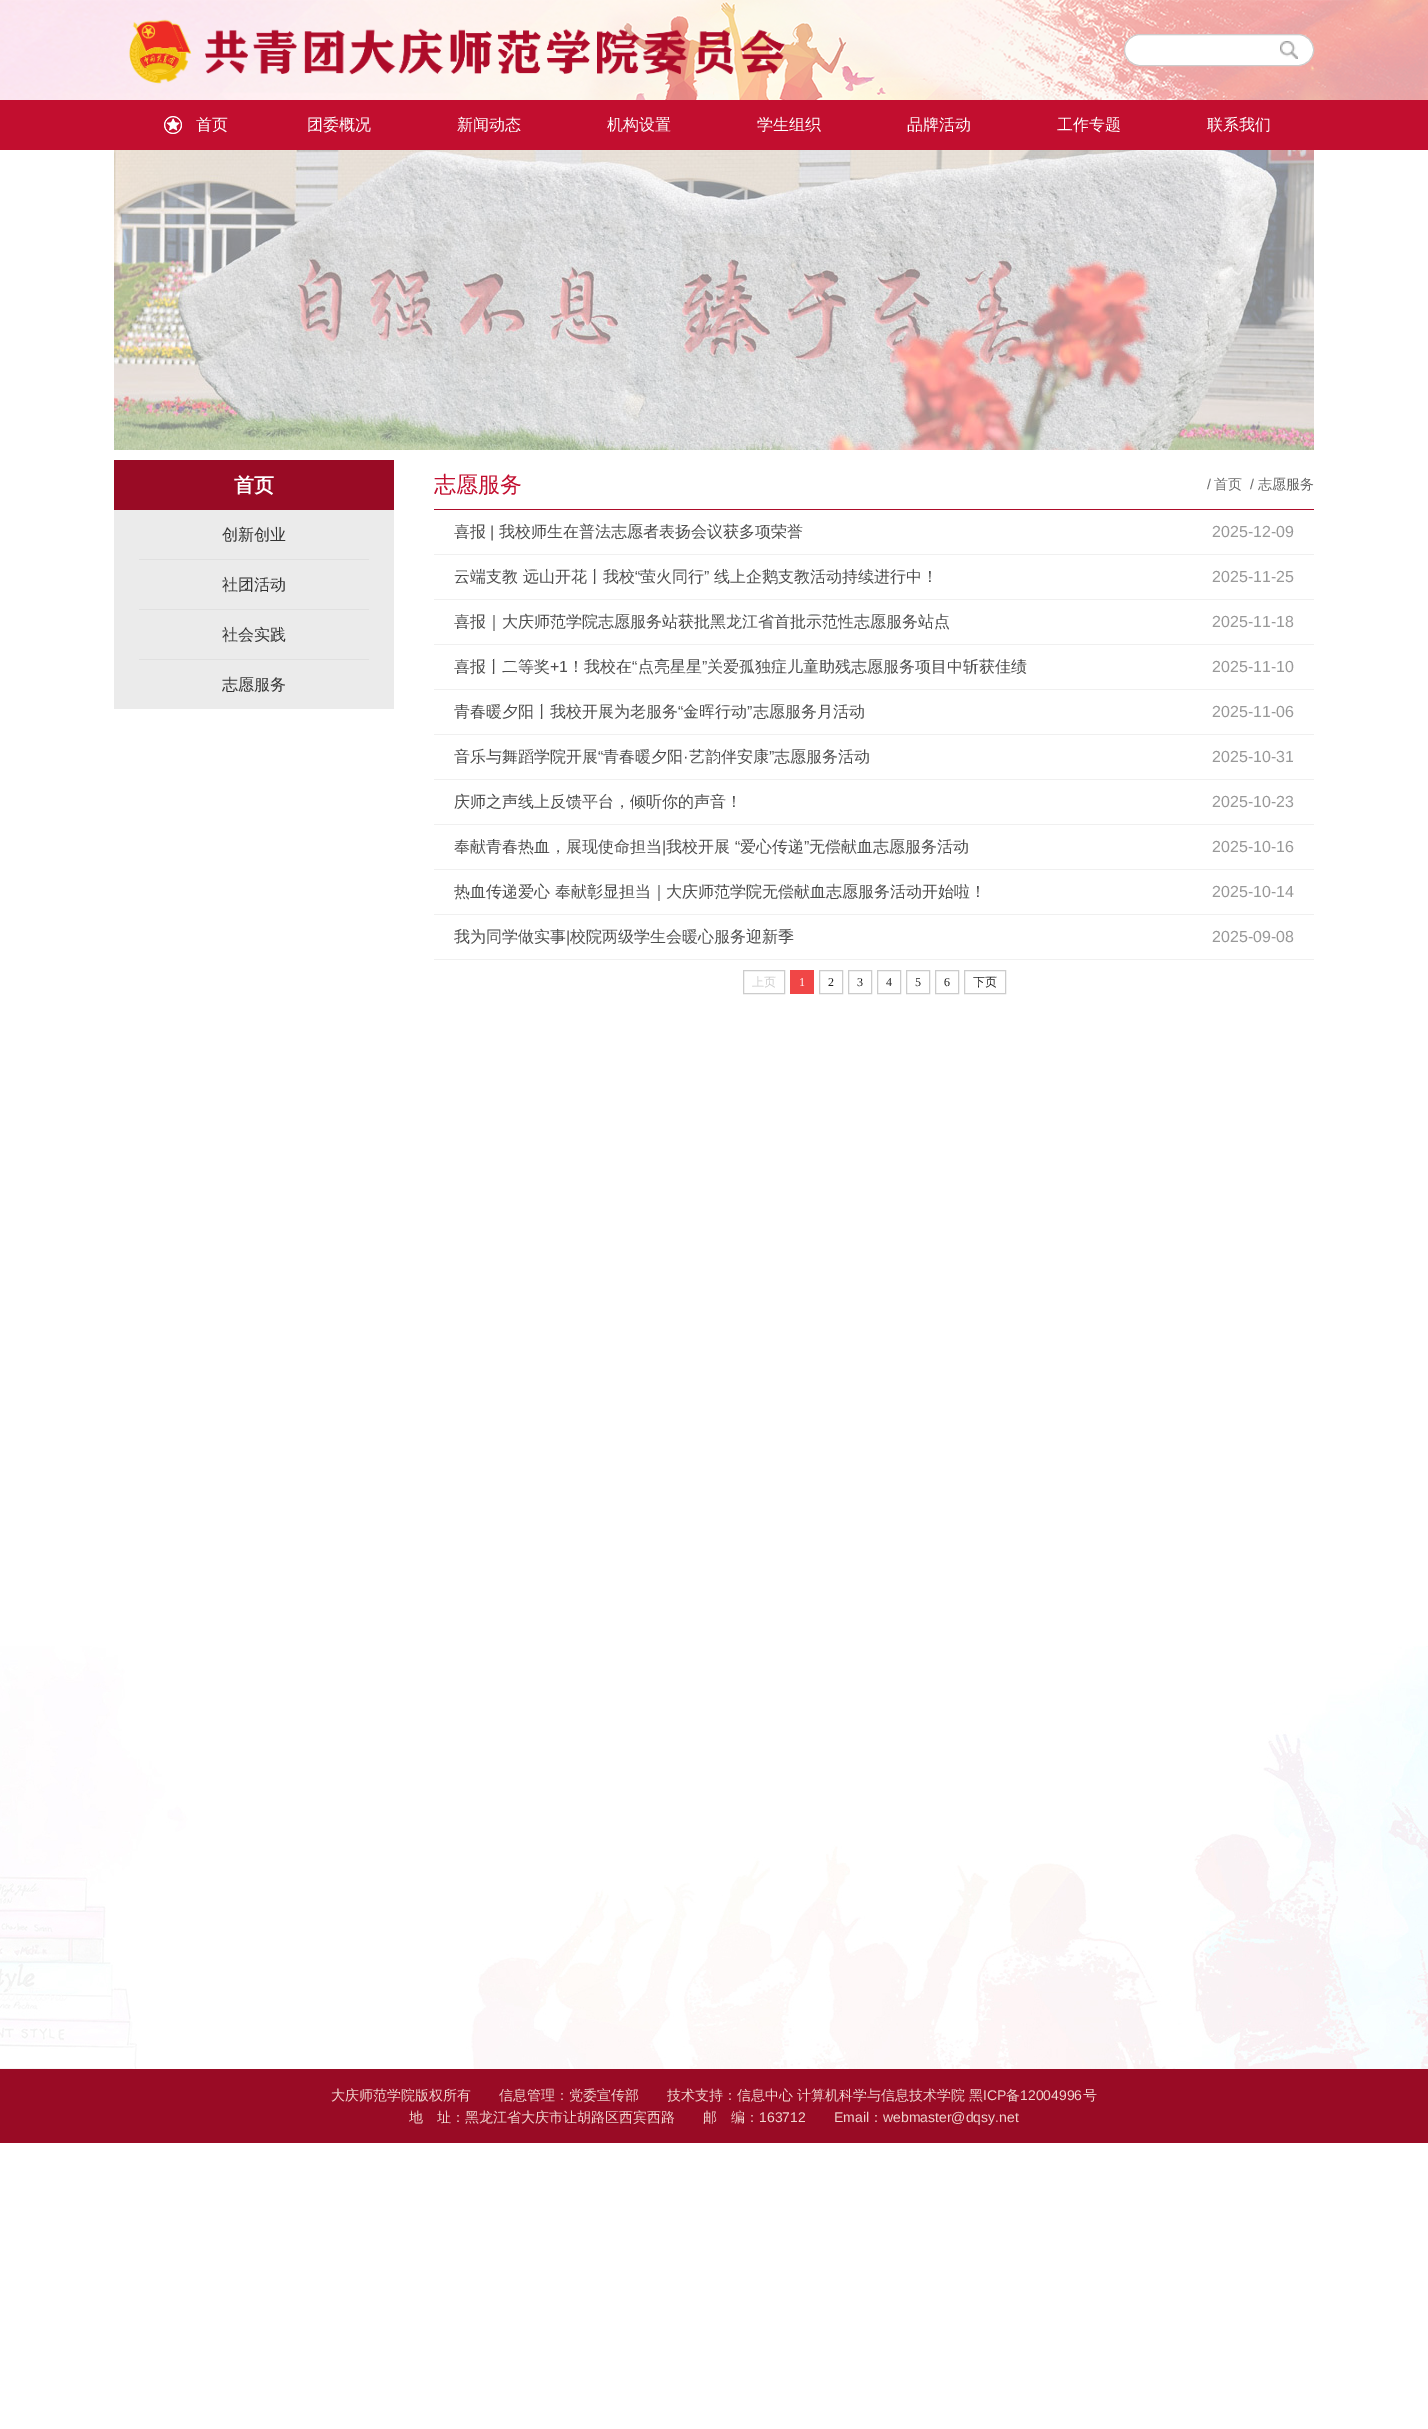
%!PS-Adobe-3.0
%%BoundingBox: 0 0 1428 2429
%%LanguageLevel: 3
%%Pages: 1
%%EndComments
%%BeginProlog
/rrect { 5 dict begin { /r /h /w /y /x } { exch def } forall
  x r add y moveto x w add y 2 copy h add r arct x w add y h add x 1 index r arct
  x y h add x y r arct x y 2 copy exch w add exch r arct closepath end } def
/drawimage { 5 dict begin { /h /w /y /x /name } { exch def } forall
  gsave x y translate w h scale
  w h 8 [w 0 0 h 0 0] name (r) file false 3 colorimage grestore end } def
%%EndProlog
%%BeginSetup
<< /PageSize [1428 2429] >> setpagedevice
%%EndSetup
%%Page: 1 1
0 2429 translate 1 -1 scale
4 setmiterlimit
1 setgray
0 0 1428 2429 rectfill
(images/1.raw) 0 0 1428 100 drawimage
(images/2.raw) 129 19 657 65 drawimage
1124.5 34.5 189 31 15.5 rrect gsave fill grestore
0.8 setgray
stroke
(images/3.raw) 1280 41 18 18 drawimage
0.761 0.055 0.184 setrgbcolor
0 100 1428 50 rectfill
(images/4.raw) 164 116 18 18 drawimage
(images/5.raw) 0 1646 1428 423 drawimage
(images/6.raw) 114 150 1200 300 drawimage
0.6 0.043 0.145 setrgbcolor
114 460 280 50 rectfill
0.922 setgray
114 510 280 199 rectfill
0.878 setgray
139 559 230 1 rectfill
139 609 230 1 rectfill
139 659 230 1 rectfill
0.682 0.047 0.165 setrgbcolor
434 509 880 1 rectfill
0.941 setgray
434 554 880 1 rectfill
434 599 880 1 rectfill
434 644 880 1 rectfill
434 689 880 1 rectfill
434 734 880 1 rectfill
434 779 880 1 rectfill
434 824 880 1 rectfill
434 869 880 1 rectfill
434 914 880 1 rectfill
434 959 880 1 rectfill
0.8 setgray
743.5 970.5 41 23 rectstroke
0.941 0.275 0.275 setrgbcolor
790 970 24 24 rectfill
0.8 setgray
819.5 970.5 23 23 rectstroke
848.5 970.5 23 23 rectstroke
877.5 970.5 23 23 rectstroke
906.5 970.5 23 23 rectstroke
935.5 970.5 23 23 rectstroke
964.5 970.5 41 23 rectstroke
0.6 0.043 0.145 setrgbcolor
0 2069 1428 74 rectfill
/WenQuanYiZenHei-Medium [16 0 0 -16 0 0] selectfont
1 setgray
196 130 moveto (首页) show
307 130 moveto (团委概况) show
457 130 moveto (新闻动态) show
607 130 moveto (机构设置) show
757 130 moveto (学生组织) show
907 130 moveto (品牌活动) show
1057 130 moveto (工作专题) show
1207 130 moveto (联系我们) show
/WenQuanYiZenHei-Bold [20 0 0 -20 0 0] selectfont
234 492 moveto (首页) show
/WenQuanYiZenHei-Medium [16 0 0 -16 0 0] selectfont
0.2 setgray
222 540 moveto (创新创业) show
222 590 moveto (社团活动) show
222 640 moveto (社会实践) show
222 690 moveto (志愿服务) show
/WenQuanYiZenHei-Medium [22 0 0 -22 0 0] selectfont
0.761 0.055 0.184 setrgbcolor
434 492 moveto (志愿服务) show
/LiberationSans-Regular [14 0 0 -14 0 0] selectfont
0.4 setgray
1207 489 moveto (/) show
/WenQuanYiZenHei-Medium [14 0 0 -14 0 0] selectfont
1214 489 moveto (首页) show
/LiberationSans-Regular [14 0 0 -14 0 0] selectfont
1250 489 moveto (/) show
/WenQuanYiZenHei-Medium [14 0 0 -14 0 0] selectfont
1258 489 moveto (志愿服务) show
/WenQuanYiZenHei-Medium [16 0 0 -16 0 0] selectfont
0.298 setgray
454 537 moveto (喜报) show
/LiberationSans-Regular [16 0 0 -16 0 0] selectfont
490 537 moveto (|) show
/WenQuanYiZenHei-Medium [16 0 0 -16 0 0] selectfont
499 537 moveto (我校师生在普法志愿者表扬会议获多项荣誉) show
/LiberationSans-Regular [16 0 0 -16 0 0] selectfont
0.6 setgray
1212 537 moveto (2025-12-09) show
/WenQuanYiZenHei-Medium [16 0 0 -16 0 0] selectfont
0.298 setgray
454 582 moveto (云端支教 远山开花丨我校) show
/LiberationSans-Regular [16 0 0 -16 0 0] selectfont
635 582 moveto (“) show
/WenQuanYiZenHei-Medium [16 0 0 -16 0 0] selectfont
640 582 moveto (萤火同行) show
/LiberationSans-Regular [16 0 0 -16 0 0] selectfont
704 582 moveto (”) show
/WenQuanYiZenHei-Medium [16 0 0 -16 0 0] selectfont
714 582 moveto (线上企鹅支教活动持续进行中！) show
/LiberationSans-Regular [16 0 0 -16 0 0] selectfont
0.6 setgray
1212 582 moveto (2025-11-25) show
/WenQuanYiZenHei-Medium [16 0 0 -16 0 0] selectfont
0.298 setgray
454 627 moveto (喜报｜大庆师范学院志愿服务站获批黑龙江省首批示范性志愿服务站点) show
/LiberationSans-Regular [16 0 0 -16 0 0] selectfont
0.6 setgray
1212 627 moveto (2025-11-18) show
/WenQuanYiZenHei-Medium [16 0 0 -16 0 0] selectfont
0.298 setgray
454 672 moveto (喜报丨二等奖) show
/LiberationSans-Regular [16 0 0 -16 0 0] selectfont
550 672 moveto (+1) show
/WenQuanYiZenHei-Medium [16 0 0 -16 0 0] selectfont
568 672 moveto (！我校在) show
/LiberationSans-Regular [16 0 0 -16 0 0] selectfont
632 672 moveto (“) show
/WenQuanYiZenHei-Medium [16 0 0 -16 0 0] selectfont
638 672 moveto (点亮星星) show
/LiberationSans-Regular [16 0 0 -16 0 0] selectfont
702 672 moveto (”) show
/WenQuanYiZenHei-Medium [16 0 0 -16 0 0] selectfont
707 672 moveto (关爱孤独症儿童助残志愿服务项目中斩获佳绩) show
/LiberationSans-Regular [16 0 0 -16 0 0] selectfont
0.6 setgray
1212 672 moveto (2025-11-10) show
/WenQuanYiZenHei-Medium [16 0 0 -16 0 0] selectfont
0.298 setgray
454 717 moveto (青春暖夕阳丨我校开展为老服务) show
/LiberationSans-Regular [16 0 0 -16 0 0] selectfont
678 717 moveto (“) show
/WenQuanYiZenHei-Medium [16 0 0 -16 0 0] selectfont
683 717 moveto (金晖行动) show
/LiberationSans-Regular [16 0 0 -16 0 0] selectfont
747 717 moveto (”) show
/WenQuanYiZenHei-Medium [16 0 0 -16 0 0] selectfont
753 717 moveto (志愿服务月活动) show
/LiberationSans-Regular [16 0 0 -16 0 0] selectfont
0.6 setgray
1212 717 moveto (2025-11-06) show
/WenQuanYiZenHei-Medium [16 0 0 -16 0 0] selectfont
0.298 setgray
454 762 moveto (音乐与舞蹈学院开展) show
/LiberationSans-Regular [16 0 0 -16 0 0] selectfont
598 762 moveto (“) show
/WenQuanYiZenHei-Medium [16 0 0 -16 0 0] selectfont
603 762 moveto (青春暖夕阳) show
689 762 moveto (艺韵伴安康) show
/LiberationSans-Regular [16 0 0 -16 0 0] selectfont
769 762 moveto (”) show
/WenQuanYiZenHei-Medium [16 0 0 -16 0 0] selectfont
774 762 moveto (志愿服务活动) show
/LiberationSans-Regular [16 0 0 -16 0 0] selectfont
683 762 moveto (·) show
0.6 setgray
1212 762 moveto (2025-10-31) show
/WenQuanYiZenHei-Medium [16 0 0 -16 0 0] selectfont
0.298 setgray
454 807 moveto (庆师之声线上反馈平台，倾听你的声音！) show
/LiberationSans-Regular [16 0 0 -16 0 0] selectfont
0.6 setgray
1212 807 moveto (2025-10-23) show
/WenQuanYiZenHei-Medium [16 0 0 -16 0 0] selectfont
0.298 setgray
454 852 moveto (奉献青春热血，展现使命担当) show
/LiberationSans-Regular [16 0 0 -16 0 0] selectfont
662 852 moveto (|) show
/WenQuanYiZenHei-Medium [16 0 0 -16 0 0] selectfont
666 852 moveto (我校开展) show
/LiberationSans-Regular [16 0 0 -16 0 0] selectfont
735 852 moveto (“) show
/WenQuanYiZenHei-Medium [16 0 0 -16 0 0] selectfont
740 852 moveto (爱心传递) show
/LiberationSans-Regular [16 0 0 -16 0 0] selectfont
804 852 moveto (”) show
/WenQuanYiZenHei-Medium [16 0 0 -16 0 0] selectfont
809 852 moveto (无偿献血志愿服务活动) show
/LiberationSans-Regular [16 0 0 -16 0 0] selectfont
0.6 setgray
1212 852 moveto (2025-10-16) show
/WenQuanYiZenHei-Medium [16 0 0 -16 0 0] selectfont
0.298 setgray
454 897 moveto (热血传递爱心 奉献彰显担当｜大庆师范学院无偿献血志愿服务活动开始啦！) show
/LiberationSans-Regular [16 0 0 -16 0 0] selectfont
0.6 setgray
1212 897 moveto (2025-10-14) show
/WenQuanYiZenHei-Medium [16 0 0 -16 0 0] selectfont
0.298 setgray
454 942 moveto (我为同学做实事) show
/LiberationSans-Regular [16 0 0 -16 0 0] selectfont
566 942 moveto (|) show
/WenQuanYiZenHei-Medium [16 0 0 -16 0 0] selectfont
570 942 moveto (校院两级学生会暖心服务迎新季) show
/LiberationSans-Regular [16 0 0 -16 0 0] selectfont
0.6 setgray
1212 942 moveto (2025-09-08) show
/WenQuanYiZenHei-Medium [12 0 0 -12 0 0] selectfont
0.8 setgray
752 986 moveto (上页) show
/LiberationSerif-Regular [12 0 0 -12 0 0] selectfont
1 setgray
799 986 moveto (1) show
0.133 setgray
828 986 moveto (2) show
857 986 moveto (3) show
886 986 moveto (4) show
915 986 moveto (5) show
944 986 moveto (6) show
/WenQuanYiZenHei-Medium [12 0 0 -12 0 0] selectfont
973 986 moveto (下页) show
/WenQuanYiZenHei-Medium [14 0 0 -14 0 0] selectfont
0.941 0.835 0.808 setrgbcolor
331 2100 moveto (大庆师范学院版权所有　　信息管理：党委宣传部　　技术支持：信息中心 计算机科学与信息技术学院 黑) show
/LiberationSans-Regular [14 0 0 -14 0 0] selectfont
983 2100 moveto (ICP) show
/WenQuanYiZenHei-Medium [14 0 0 -14 0 0] selectfont
1006 2100 moveto (备) show
/LiberationSans-Regular [14 0 0 -14 0 0] selectfont
1020 2100 moveto (12004996) show
/WenQuanYiZenHei-Medium [14 0 0 -14 0 0] selectfont
1083 2100 moveto (号) show
409 2122 moveto (地　址：黑龙江省大庆市让胡路区西宾西路　　邮　编：) show
/LiberationSans-Regular [14 0 0 -14 0 0] selectfont
759 2122 moveto (163712) show
834 2122 moveto (Email) show
/WenQuanYiZenHei-Medium [14 0 0 -14 0 0] selectfont
869 2122 moveto (：) show
/LiberationSans-Regular [14 0 0 -14 0 0] selectfont
883 2122 moveto (webmaster@dqsy.net) show
showpage
%%EOF
